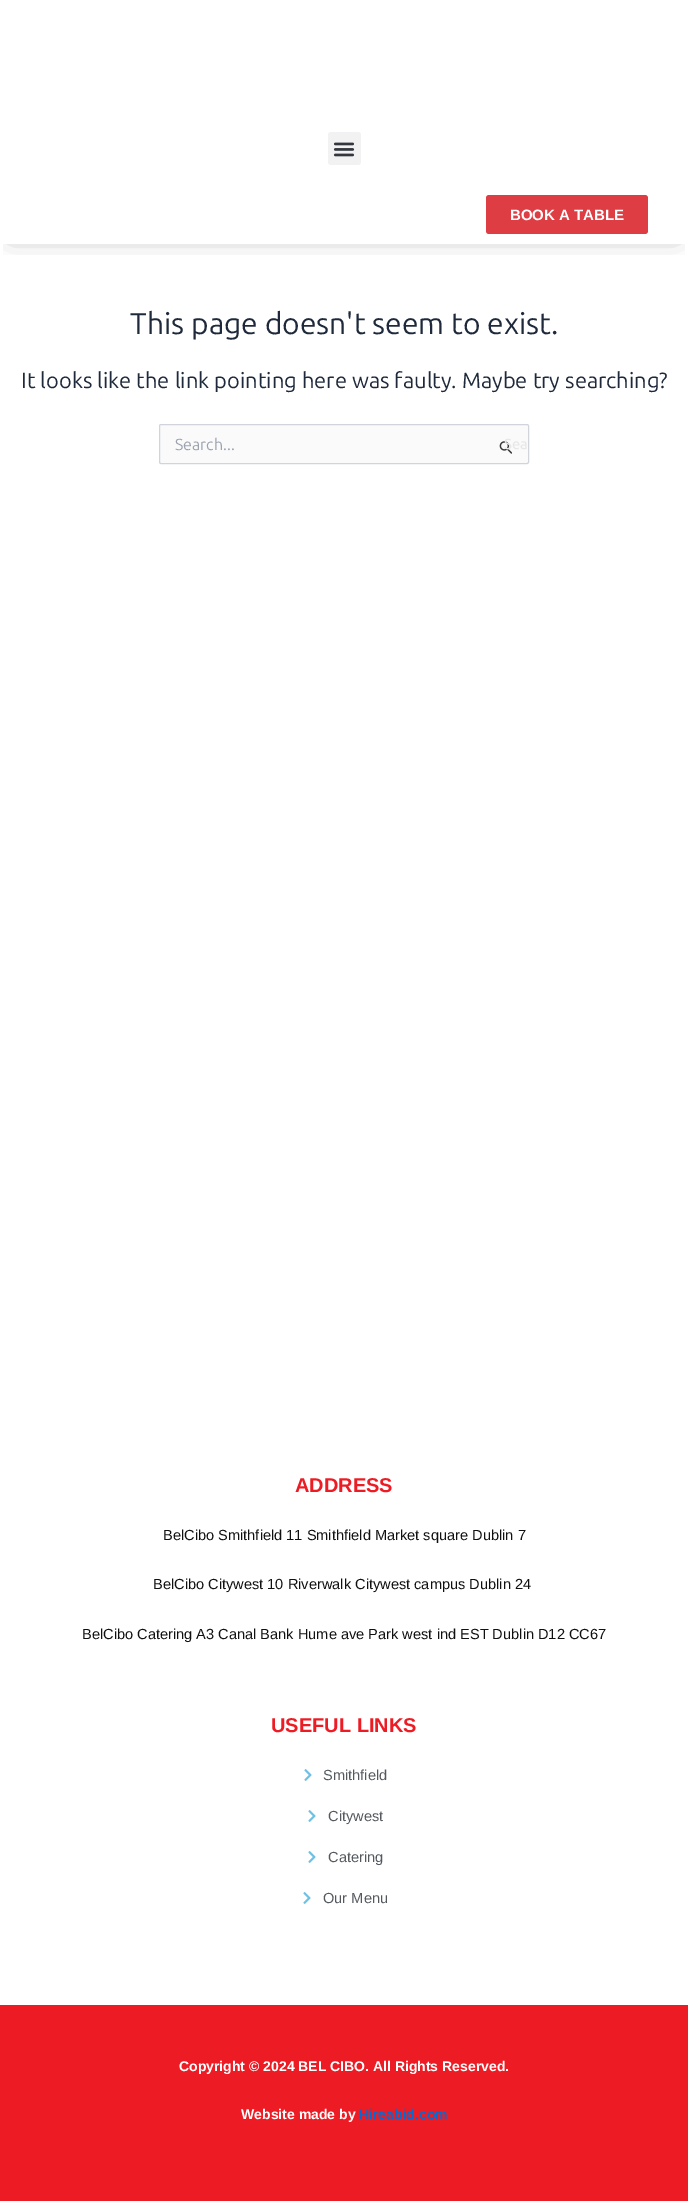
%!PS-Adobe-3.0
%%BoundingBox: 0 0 688 2201
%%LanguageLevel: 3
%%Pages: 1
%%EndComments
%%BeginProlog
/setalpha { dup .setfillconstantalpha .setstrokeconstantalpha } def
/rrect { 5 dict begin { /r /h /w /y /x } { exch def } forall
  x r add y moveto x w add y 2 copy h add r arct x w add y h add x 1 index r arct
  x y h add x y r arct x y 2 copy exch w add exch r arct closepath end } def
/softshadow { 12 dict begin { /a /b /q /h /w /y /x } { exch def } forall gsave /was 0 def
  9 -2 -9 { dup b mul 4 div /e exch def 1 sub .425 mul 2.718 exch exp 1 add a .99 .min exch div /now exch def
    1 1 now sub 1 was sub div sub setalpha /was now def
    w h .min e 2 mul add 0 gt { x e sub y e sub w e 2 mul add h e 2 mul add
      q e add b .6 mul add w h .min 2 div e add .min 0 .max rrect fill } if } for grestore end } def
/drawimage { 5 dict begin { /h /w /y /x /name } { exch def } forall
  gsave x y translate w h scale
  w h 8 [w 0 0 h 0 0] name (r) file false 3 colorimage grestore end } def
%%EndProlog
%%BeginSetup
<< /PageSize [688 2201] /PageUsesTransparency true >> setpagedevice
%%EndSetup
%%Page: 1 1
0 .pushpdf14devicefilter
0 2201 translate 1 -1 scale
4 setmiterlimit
1 setgray
0 0 688 2201 rectfill
gsave
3 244 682 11 rectclip
0 setgray
12 12 664 220 0 13 0.5 softshadow
grestore
0.949 setgray
328 132 33 33 3 rrect fill
(images/1.raw) 333 142 22 15 drawimage
0.867 0.239 0.263 setrgbcolor
486 195 162 39 3 rrect fill
0.98 setgray
159.5 424.5 369 39 1.5 rrect gsave fill grestore
0.82 0.835 0.859 setrgbcolor
stroke
(images/2.raw) 499 441 13 13 drawimage
(images/3.raw) 304 1769 8 12 drawimage
(images/3.raw) 308 1810 8 12 drawimage
(images/3.raw) 308 1851 8 12 drawimage
(images/3.raw) 303 1892 8 12 drawimage
0.929 0.11 0.141 setrgbcolor
0 2005 688 196 rectfill
/LiberationSans-Bold [15 0 0 -15 0 0] selectfont
1 setgray
510 220 moveto (BOOK A TABLE) show
/Ubuntu-Regular [30 0 0 -30 0 0] selectfont
0.118 0.161 0.231 setrgbcolor
130 334 moveto (This page doesn't seem to exist.) show
/Ubuntu-Regular [21.9 0 0 -21.9 0 0] selectfont
21 388 moveto (It looks like the link pointing here was faulty. Maybe try searching?) show
/Ubuntu-Regular [16 0 0 -16 0 0] selectfont
0.612 0.639 0.686 setrgbcolor
175 450 moveto (Search...) show
/Ubuntu-Medium [14.6 0 0 -14.6 0 0] selectfont
0.906 setgray
504 449 moveto (Sea) show
/LiberationSans-Bold [20 0 0 -20 0 0] selectfont
0.929 0.11 0.141 setrgbcolor
295 1492 moveto (ADDRESS) show
/LiberationSans-Regular [14.6 0 0 -14.6 0 0] selectfont
0.067 0.063 0.063 setrgbcolor
163 1540 moveto (BelCibo Smithfield 11 Smithfield Market square Dublin 7) show
153 1589 moveto (BelCibo Citywest 10 Riverwalk Citywest campus Dublin 24) show
82 1639 moveto (BelCibo Catering A3 Canal Bank Hume ave Park west ind EST Dublin D12 CC67) show
/LiberationSans-Bold [20 0 0 -20 0 0] selectfont
0.929 0.11 0.141 setrgbcolor
271 1732 moveto (USEFUL LINKS) show
/LiberationSans-Regular [14.6 0 0 -14.6 0 0] selectfont
0.329 0.349 0.373 setrgbcolor
323 1780 moveto (Smithfield) show
328 1821 moveto (Citywest) show
328 1862 moveto (Catering) show
323 1903 moveto (Our Menu) show
/LiberationSans-Bold [14 0 0 -14 0 0] selectfont
1 setgray
179 2071 moveto (Copyright © 2024 BEL CIBO. All Rights Reserved.) show
241 2119 moveto (Website made by) show
0.016 0.42 0.824 setrgbcolor
359 2119 moveto (Hireabid.com) show
.poppdf14devicefilter showpage
%%EOF
